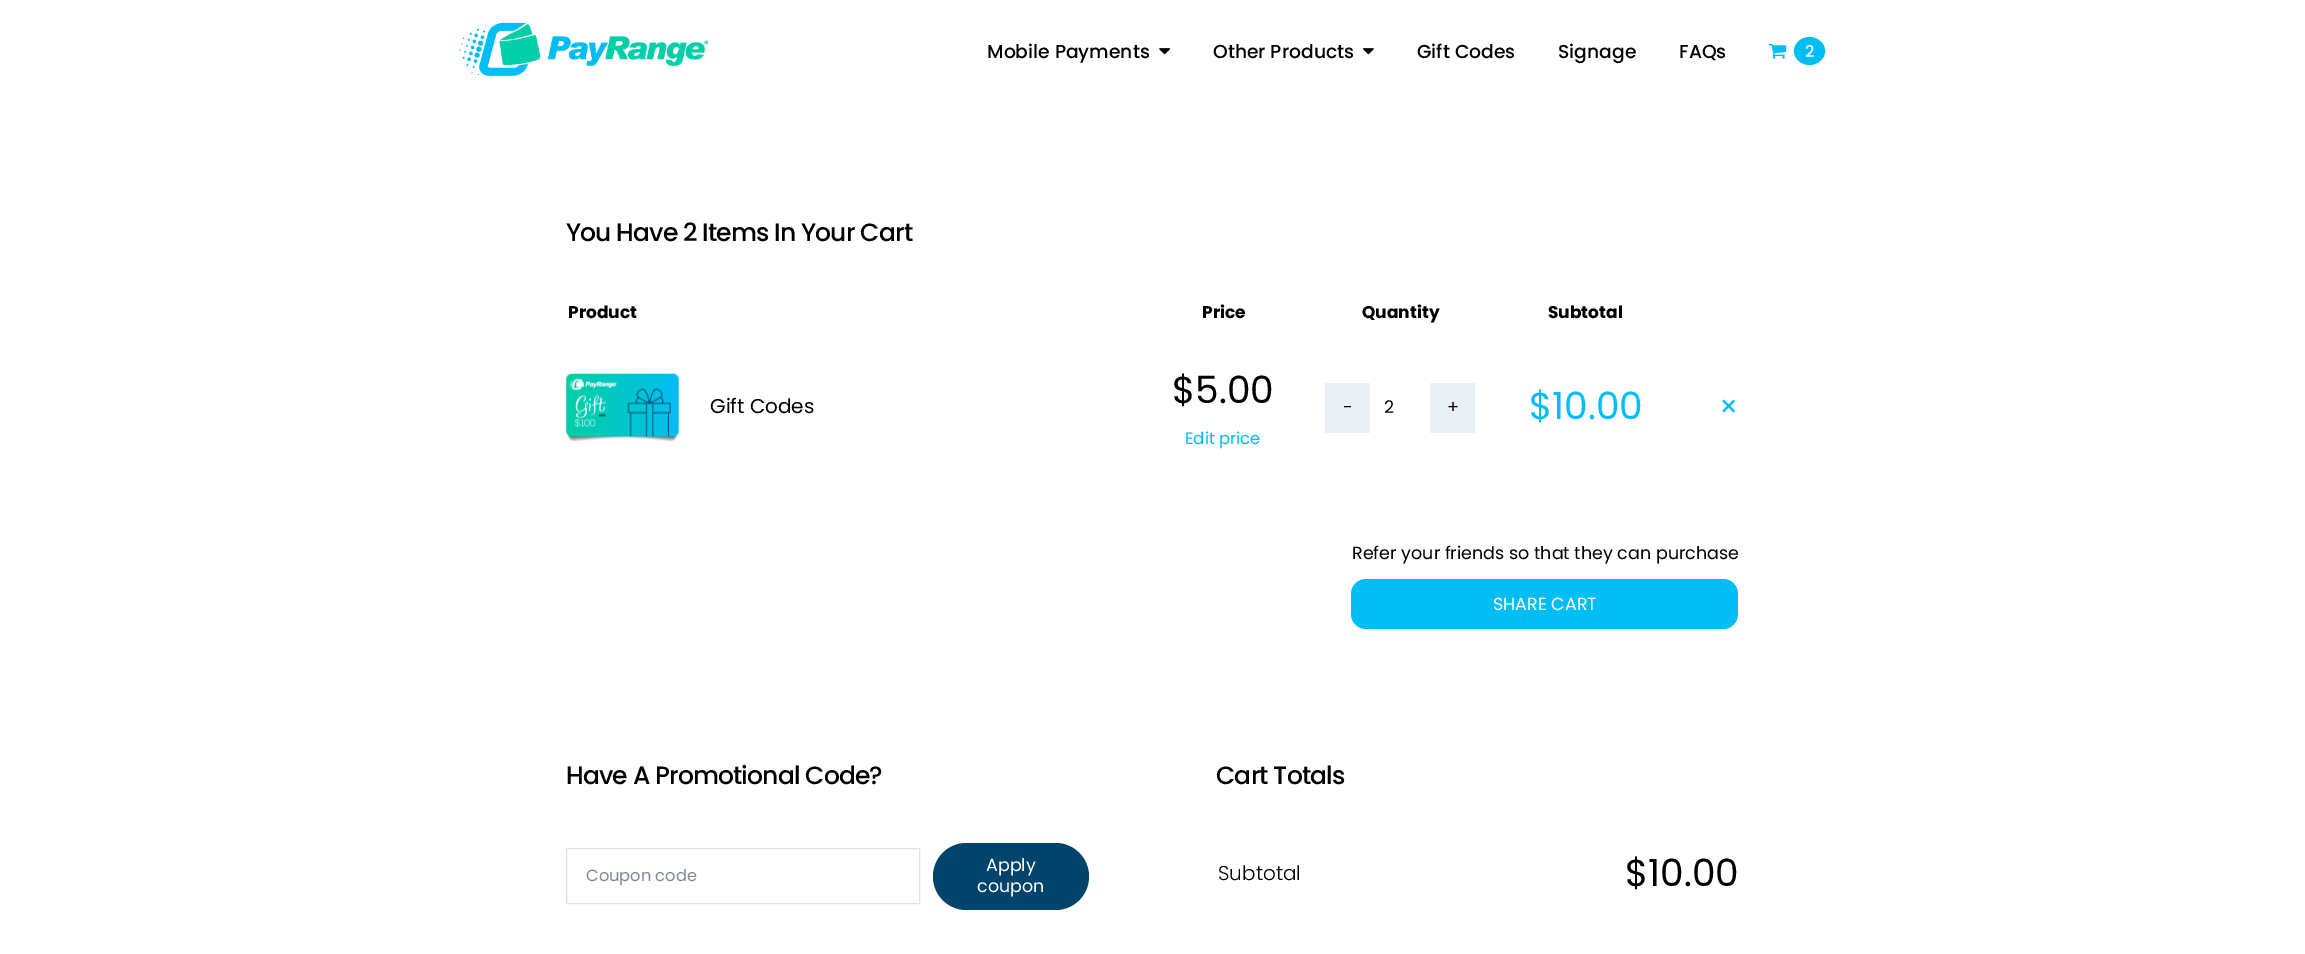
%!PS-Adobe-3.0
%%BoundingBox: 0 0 2305 954
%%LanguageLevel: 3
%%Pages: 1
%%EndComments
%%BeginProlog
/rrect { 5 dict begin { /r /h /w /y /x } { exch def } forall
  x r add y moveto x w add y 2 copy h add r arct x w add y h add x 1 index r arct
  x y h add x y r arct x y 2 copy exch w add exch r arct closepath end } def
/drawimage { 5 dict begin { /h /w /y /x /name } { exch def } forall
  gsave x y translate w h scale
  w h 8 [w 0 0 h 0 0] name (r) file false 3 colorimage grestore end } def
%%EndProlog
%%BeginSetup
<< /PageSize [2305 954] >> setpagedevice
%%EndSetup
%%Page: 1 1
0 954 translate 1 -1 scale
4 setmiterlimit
1 setgray
0 0 2305 954 rectfill
(images/1.raw) 458 22 251 55 drawimage
(images/2.raw) 1159 48 11 7 drawimage
(images/3.raw) 1362 48 12 7 drawimage
(images/4.raw) 1768 43 19 16 drawimage
0 0.741 0.957 setrgbcolor
newpath 1809.5 37 moveto 1818 37 1825 43.5 1825 51 curveto 1825 58.5 1818 65 1809.5 65 curveto 1801 65 1794 58.5 1794 51 curveto 1794 43.5 1801 37 1809.5 37 curveto closepath fill
(images/5.raw) 566 373 113 69 drawimage
0.918 0.941 0.961 setrgbcolor
1325 383 45 50 rectfill
1430 383 45 50 rectfill
0 0.741 0.957 setrgbcolor
1351 579 387 50 15 rrect fill
0.859 0.886 0.918 setrgbcolor
566.5 848.5 353 55 rectstroke
0 0.263 0.42 setrgbcolor
933 843 156 67 33.5 rrect fill
/Poppins-Medium [18.75 0 0 -18.75 0 0] selectfont
0 setgray
987 58 moveto (Mobile Payments) show
1213 58 moveto (Other Products) show
1417 58 moveto (Gift Codes) show
1558 58 moveto (Signage) show
1679 58 moveto (FAQs) show
/Poppins-Medium [16.25 0 0 -16.25 0 0] selectfont
1 setgray
1805 57 moveto (2) show
/Poppins-Medium [25 0 0 -25 0 0] selectfont
0 setgray
566 241 moveto -0.85 0 (You Have 2 Items In Your Cart) ashow
/Poppins-Bold [17 0 0 -17 0 0] selectfont
568 318 moveto (Product) show
1202 318 moveto (Price) show
1362 318 moveto (Quantity) show
1548 318 moveto (Subtotal) show
/Poppins-Regular [20 0 0 -20 0 0] selectfont
710 413 moveto (Gift Codes) show
/Poppins-Regular [37.5 0 0 -37.5 0 0] selectfont
1172 403 moveto ($5.00) show
/Poppins-Regular [16.5 0 0 -16.5 0 0] selectfont
0 0.741 0.957 setrgbcolor
1185 444 moveto (Edit price) show
/Poppins-Regular [17.5 0 0 -17.5 0 0] selectfont
0 setgray
1343 413 moveto (-) show
1384 413 moveto (2) show
1447 413 moveto (+) show
/Poppins-Regular [37.5 0 0 -37.5 0 0] selectfont
0 0.741 0.957 setrgbcolor
1529 419 moveto ($10.00) show
/Poppins-Regular [30 0 0 -30 0 0] selectfont
1719 417 moveto (×) show
/Poppins-Regular [17.5 0 0 -17.5 0 0] selectfont
0 setgray
1352 559 moveto (Refer your friends so that they can purchase) show
1 setgray
1493 610 moveto (SHARE CART) show
/Poppins-Medium [25 0 0 -25 0 0] selectfont
0 setgray
566 784 moveto -0.85 0 (Have A Promotional Code?) ashow
/Poppins-Regular [16.25 0 0 -16.25 0 0] selectfont
0.498 0.529 0.584 setrgbcolor
586 881 moveto (Coupon code) show
/Poppins-Regular [17.5 0 0 -17.5 0 0] selectfont
1 setgray
986 871 moveto (Apply) show
977 892 moveto (coupon) show
/Poppins-Medium [25 0 0 -25 0 0] selectfont
0 setgray
1216 784 moveto -0.85 0 (Cart Totals) ashow
/Poppins-Light [20 0 0 -20 0 0] selectfont
1218 880 moveto (Subtotal) show
/Poppins-Regular [37.5 0 0 -37.5 0 0] selectfont
1625 886 moveto ($10.00) show
showpage
%%EOF
